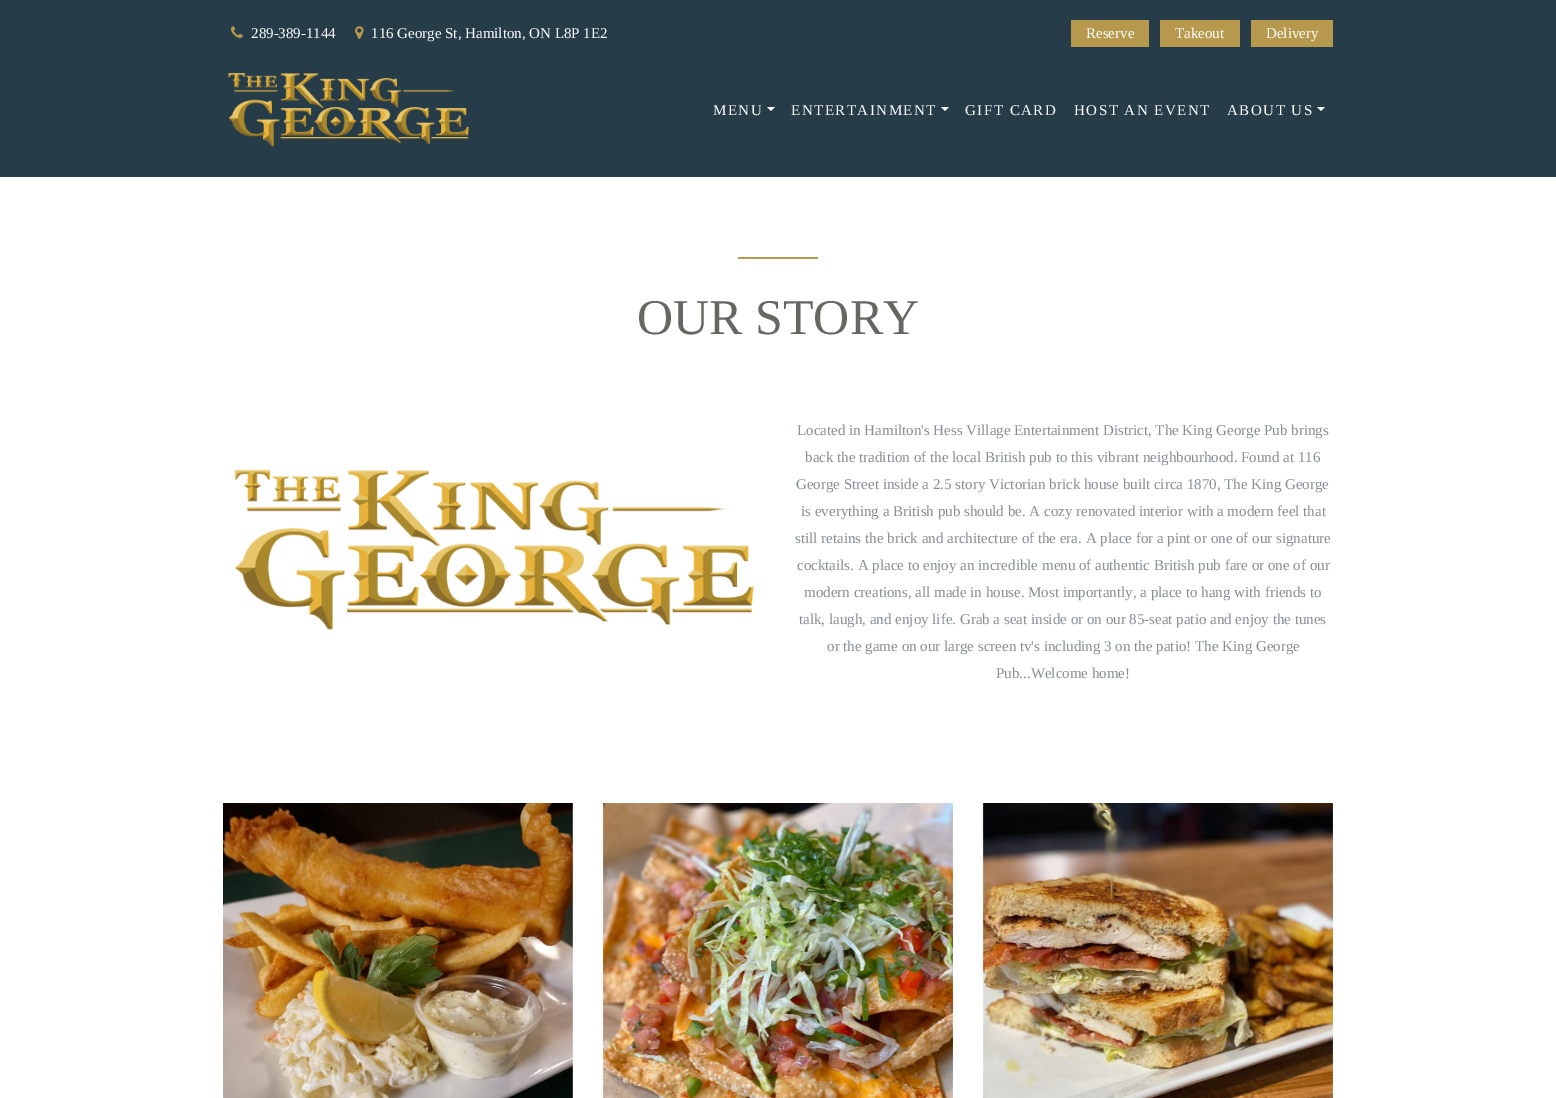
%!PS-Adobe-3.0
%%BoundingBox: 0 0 1556 1098
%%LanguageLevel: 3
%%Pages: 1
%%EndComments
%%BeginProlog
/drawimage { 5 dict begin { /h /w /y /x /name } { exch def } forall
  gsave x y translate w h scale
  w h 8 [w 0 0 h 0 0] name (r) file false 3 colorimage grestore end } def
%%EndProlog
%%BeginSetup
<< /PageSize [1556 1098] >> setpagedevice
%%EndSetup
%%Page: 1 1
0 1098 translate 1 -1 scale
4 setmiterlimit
1 setgray
0 0 1556 1098 rectfill
0.149 0.235 0.282 setrgbcolor
0 0 1556 177 rectfill
(images/1.raw) 231 26 12 12 drawimage
(images/2.raw) 355 26 9 13 drawimage
0.714 0.6 0.298 setrgbcolor
1071 20 78 27 rectfill
1160 20 80 27 rectfill
1251 20 82 27 rectfill
(images/3.raw) 228 73 242 74 drawimage
1 setgray
newpath 767 107 moveto 775 107 lineto 771 111 lineto closepath fill
newpath 941 107 moveto 949 107 lineto 945 111 lineto closepath fill
newpath 1317 107 moveto 1325 107 lineto 1321 111 lineto closepath fill
0.714 0.6 0.298 setrgbcolor
738 257 80 2 rectfill
(images/4.raw) 234 469 520 161 drawimage
(images/5.raw) 223 803 350 295 drawimage
(images/6.raw) 602 803 351 295 drawimage
(images/7.raw) 982 803 351 295 drawimage
/LiberationSerif-Regular [15 0 0 -15 0 0] selectfont
1 setgray
251 38 moveto (289-389-1144) show
371 38 moveto (116 George St, Hamilton, ON L8P 1E2) show
1086 38 moveto (Reserve) show
1175 38 moveto (Takeout) show
1266 38 moveto (Delivery) show
713 115 moveto 1.5 0 (MENU) ashow
791 115 moveto 1.5 0 (ENTERTAINMENT) ashow
965 115 moveto 1.5 0 (GIFT CARD) ashow
1074 115 moveto 1.5 0 (HOST AN EVENT) ashow
1227 115 moveto 1.5 0 (ABOUT US) ashow
/LiberationSerif-Regular [50 0 0 -50 0 0] selectfont
0.404 0.4 0.384 setrgbcolor
637 334 moveto (OUR STORY) show
/LiberationSerif-Regular [15 0 0 -15 0 0] selectfont
0.525 0.557 0.588 setrgbcolor
797 435 moveto (Located in Hamilton's Hess Village Entertainment District, The King George Pub brings) show
805 462 moveto (back the tradition of the local British pub to this vibrant neighbourhood. Found at 116) show
796 489 moveto (George Street inside a 2.5 story Victorian brick house built circa 1870, The King George) show
801 516 moveto (is everything a British pub should be. A cozy renovated interior with a modern feel that) show
795 543 moveto (still retains the brick and architecture of the era. A place for a pint or one of our signature) show
797 570 moveto (cocktails. A place to enjoy an incredible menu of authentic British pub fare or one of our) show
804 597 moveto (modern creations, all made in house. Most importantly, a place to hang with friends to) show
799 624 moveto (talk, laugh, and enjoy life. Grab a seat inside or on our 85-seat patio and enjoy the tunes) show
827 651 moveto (or the game on our large screen tv's including 3 on the patio! The King George) show
996 678 moveto (Pub...Welcome home!) show
showpage
%%EOF
